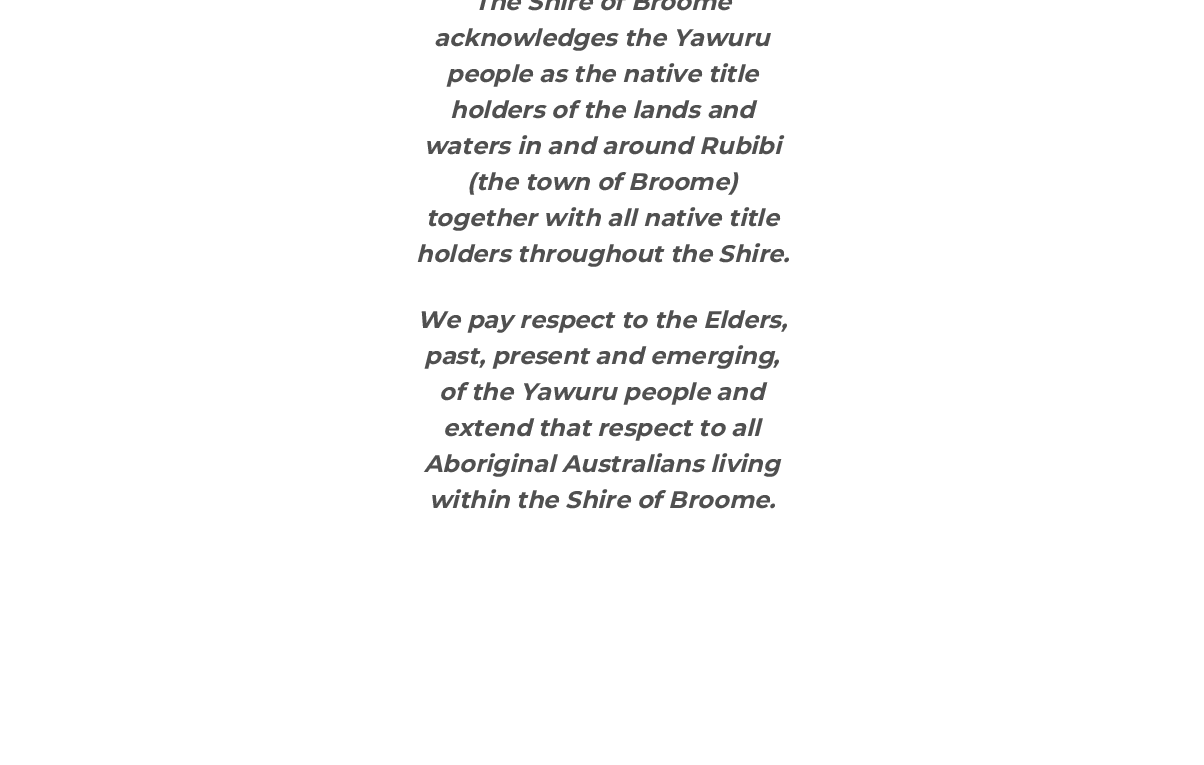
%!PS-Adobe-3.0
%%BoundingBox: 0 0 1204 765
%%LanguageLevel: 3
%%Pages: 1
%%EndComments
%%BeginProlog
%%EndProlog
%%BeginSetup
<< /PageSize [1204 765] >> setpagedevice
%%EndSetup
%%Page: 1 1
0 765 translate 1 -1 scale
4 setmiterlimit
1 setgray
0 0 1204 765 rectfill
/Montserrat-BoldItalic [24 0 0 -24 0 0] selectfont
0.314 setgray
474 10 moveto (The Shire of Broome) show
434 46 moveto (acknowledges the Yawuru) show
446 82 moveto (people as the native title) show
450 118 moveto (holders of the lands and) show
424 154 moveto (waters in and around Rubibi) show
467 190 moveto (\(the town of Broome\)) show
426 226 moveto (together with all native title) show
416 262 moveto (holders throughout the Shire.) show
417 328 moveto (We pay respect to the Elders,) show
424 364 moveto (past, present and emerging,) show
439 400 moveto (of the Yawuru people and) show
443 436 moveto (extend that respect to all) show
424 472 moveto (Aboriginal Australians living) show
429 508 moveto (within the Shire of Broome.) show
showpage
%%EOF
